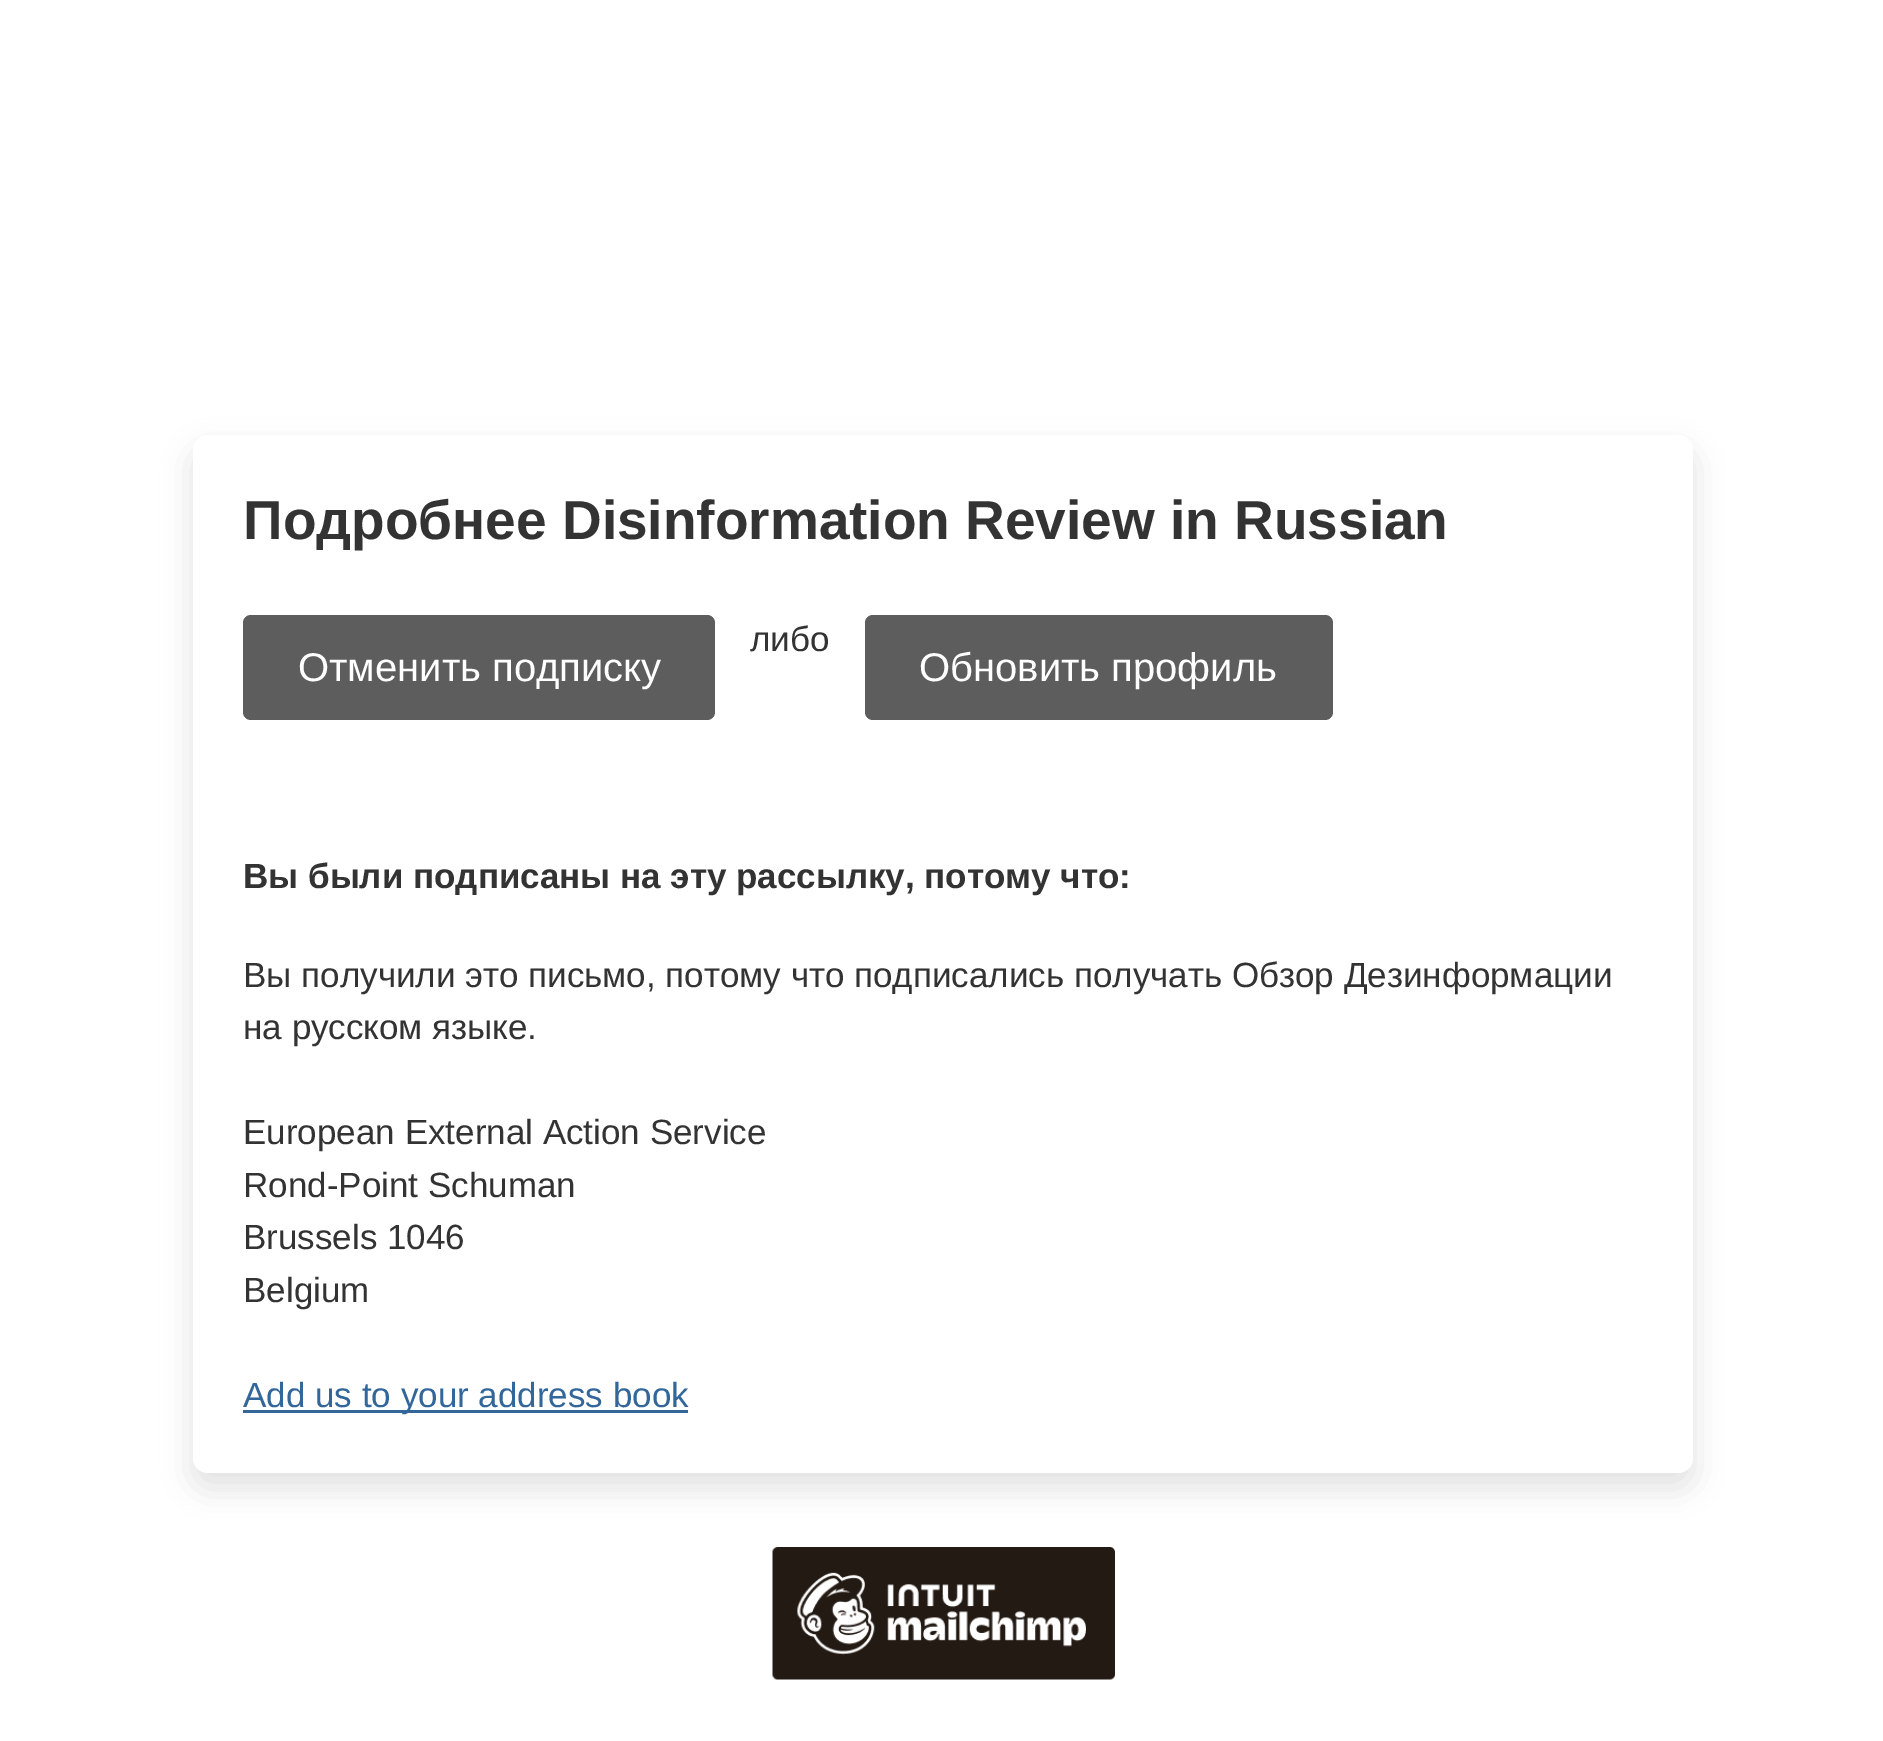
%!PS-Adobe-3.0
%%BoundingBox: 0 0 1883 1741
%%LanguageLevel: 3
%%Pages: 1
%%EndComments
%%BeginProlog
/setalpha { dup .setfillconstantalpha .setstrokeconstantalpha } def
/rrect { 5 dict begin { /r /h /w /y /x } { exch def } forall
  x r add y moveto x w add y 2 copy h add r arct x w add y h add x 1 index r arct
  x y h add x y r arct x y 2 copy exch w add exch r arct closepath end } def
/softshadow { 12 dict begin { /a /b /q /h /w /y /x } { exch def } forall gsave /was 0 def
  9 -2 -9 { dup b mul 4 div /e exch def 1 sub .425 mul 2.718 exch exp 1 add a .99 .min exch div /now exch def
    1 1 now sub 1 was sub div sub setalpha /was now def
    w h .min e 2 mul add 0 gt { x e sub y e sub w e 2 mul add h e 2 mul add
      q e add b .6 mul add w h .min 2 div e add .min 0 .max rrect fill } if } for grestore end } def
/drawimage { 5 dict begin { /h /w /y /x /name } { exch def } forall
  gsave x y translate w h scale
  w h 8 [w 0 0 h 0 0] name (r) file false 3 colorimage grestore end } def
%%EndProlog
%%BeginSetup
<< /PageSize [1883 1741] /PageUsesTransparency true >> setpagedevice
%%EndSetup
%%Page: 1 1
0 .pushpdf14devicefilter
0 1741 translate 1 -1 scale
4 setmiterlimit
1 setgray
0 0 1883 1741 rectfill
0.051 0.071 0.086 setrgbcolor
193 450 1500 1038 15 15 0.12 softshadow
1 setgray
193 435 1500 1038 15 rrect fill
0.365 setgray
243 615 472 105 8 rrect fill
865 615 468 105 8 rrect fill
0.2 0.4 0.6 setrgbcolor
243 1410 445 3 rectfill
(images/1.raw) 772 1547 343 133 drawimage
/LiberationSans-Bold [55 0 0 -55 0 0] selectfont
0.2 setgray
243 539 moveto (Подробнее Disinformation Review in Russian) show
/LiberationSans-Regular [35 0 0 -35 0 0] selectfont
750 651 moveto (либо) show
/LiberationSans-Regular [40 0 0 -40 0 0] selectfont
1 setgray
298 681 moveto (Отменить подписку) show
919 681 moveto (Обновить профиль) show
/LiberationSans-Bold [35 0 0 -35 0 0] selectfont
0.2 setgray
243 888 moveto (Вы были подписаны на эту рассылку, потому что:) show
/LiberationSans-Regular [35 0 0 -35 0 0] selectfont
243 987 moveto (Вы получили это письмо, потому что подписались получать Обзор Дезинформации) show
243 1039 moveto (на русском языке.) show
243 1144 moveto (European External Action Service) show
243 1197 moveto (Rond-Point Schuman) show
243 1249 moveto (Brussels 1046) show
243 1302 moveto (Belgium) show
0.2 0.4 0.6 setrgbcolor
243 1407 moveto (Add us to your address book) show
.poppdf14devicefilter showpage
%%EOF
